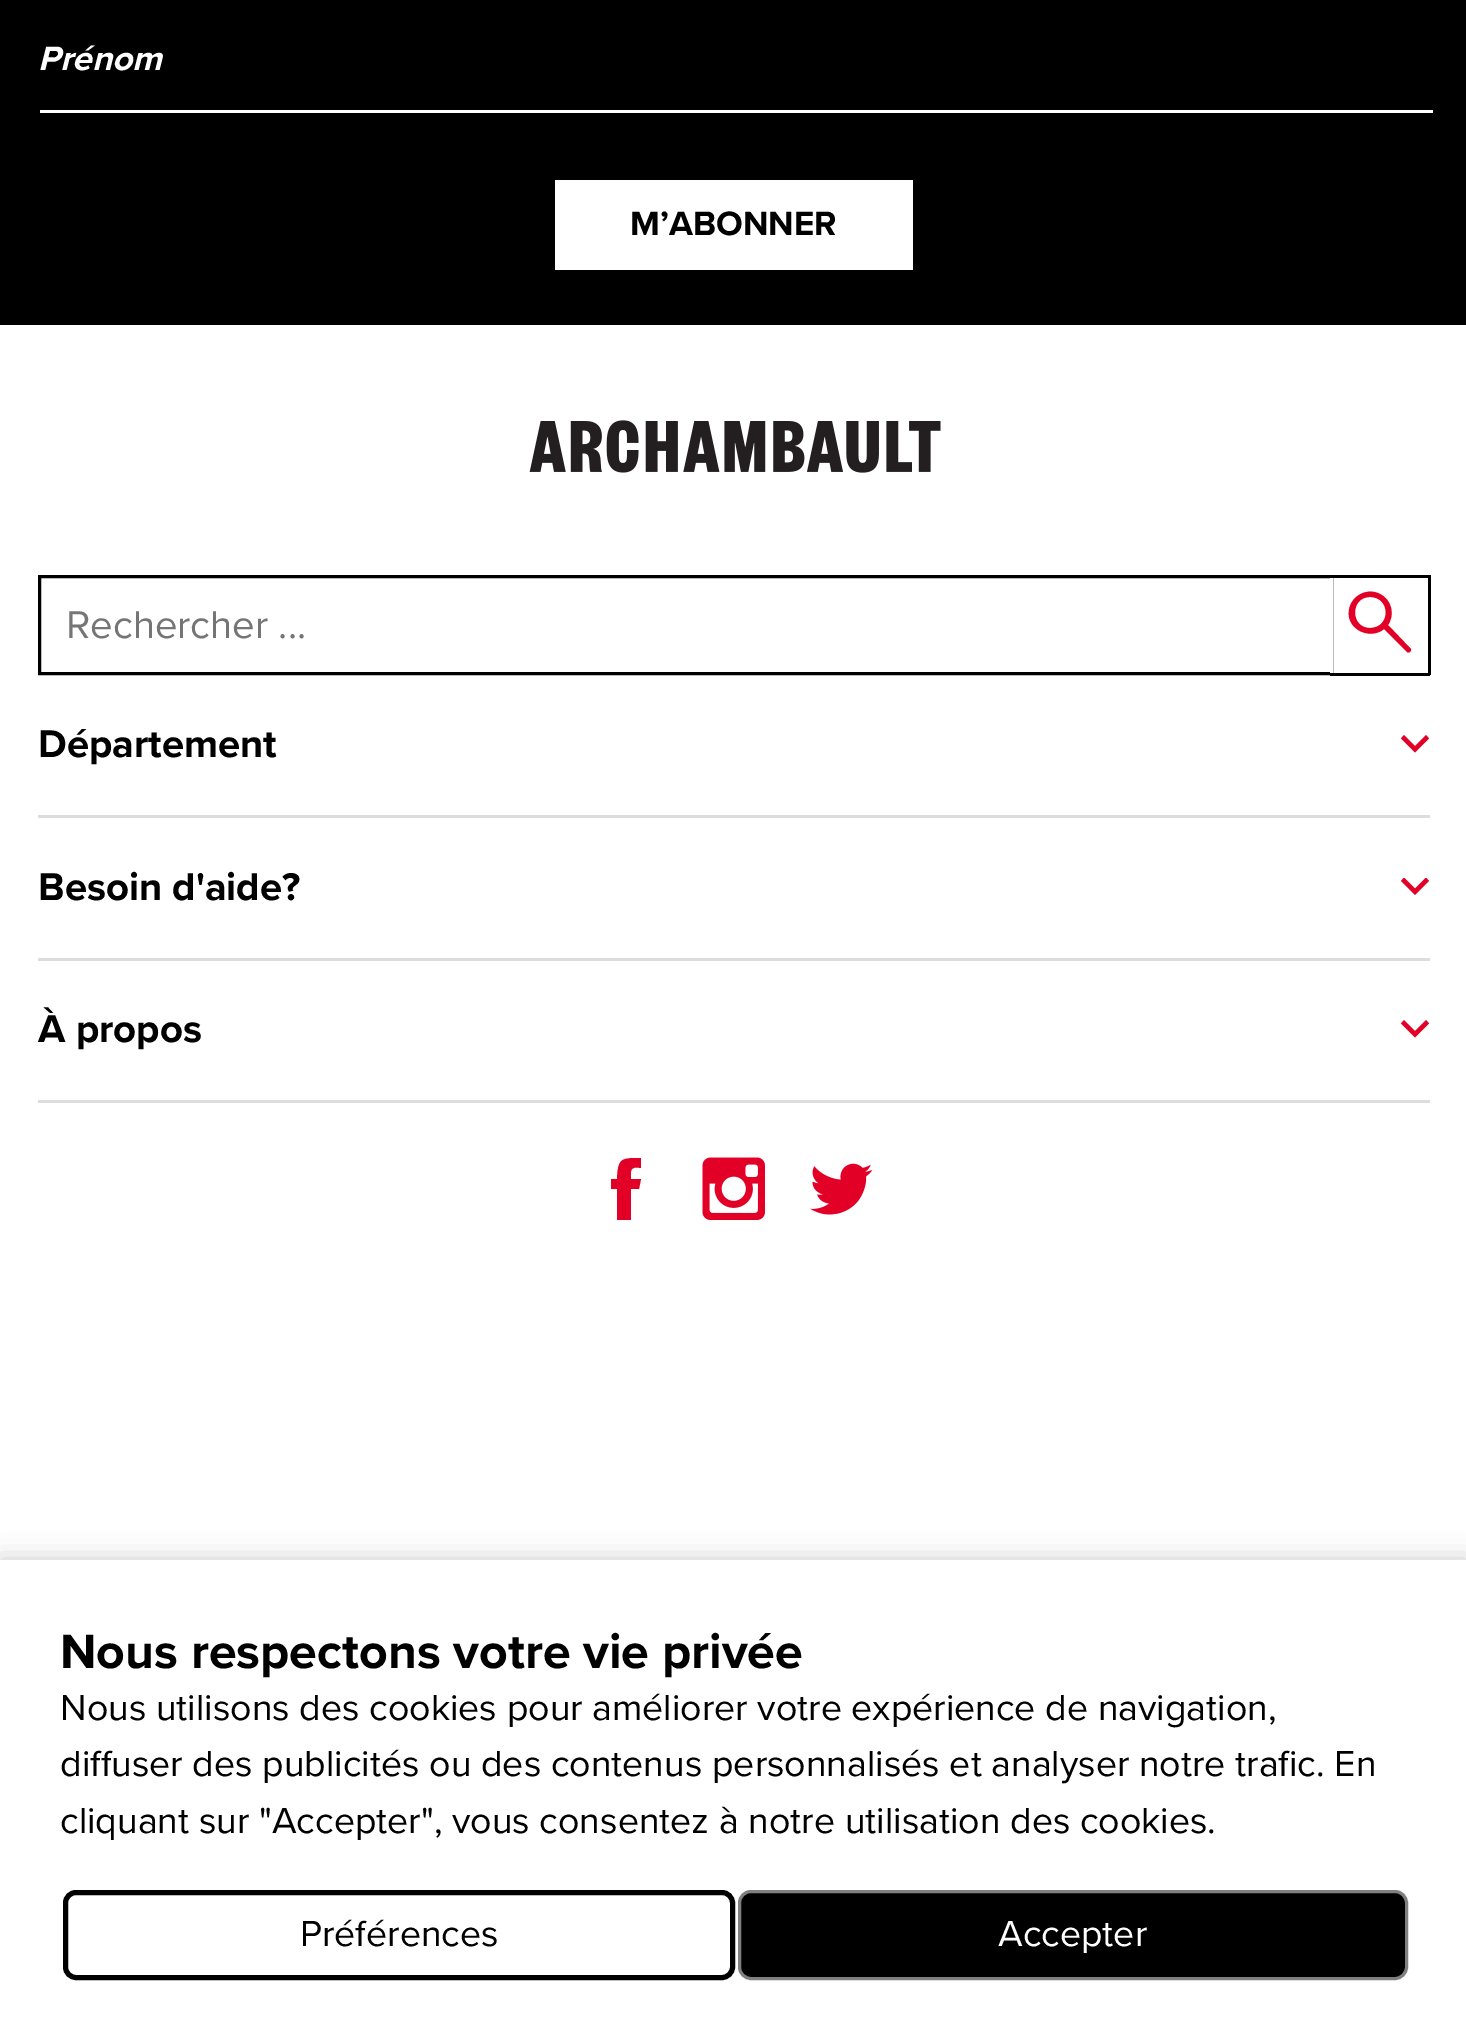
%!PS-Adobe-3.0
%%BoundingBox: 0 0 1466 2040
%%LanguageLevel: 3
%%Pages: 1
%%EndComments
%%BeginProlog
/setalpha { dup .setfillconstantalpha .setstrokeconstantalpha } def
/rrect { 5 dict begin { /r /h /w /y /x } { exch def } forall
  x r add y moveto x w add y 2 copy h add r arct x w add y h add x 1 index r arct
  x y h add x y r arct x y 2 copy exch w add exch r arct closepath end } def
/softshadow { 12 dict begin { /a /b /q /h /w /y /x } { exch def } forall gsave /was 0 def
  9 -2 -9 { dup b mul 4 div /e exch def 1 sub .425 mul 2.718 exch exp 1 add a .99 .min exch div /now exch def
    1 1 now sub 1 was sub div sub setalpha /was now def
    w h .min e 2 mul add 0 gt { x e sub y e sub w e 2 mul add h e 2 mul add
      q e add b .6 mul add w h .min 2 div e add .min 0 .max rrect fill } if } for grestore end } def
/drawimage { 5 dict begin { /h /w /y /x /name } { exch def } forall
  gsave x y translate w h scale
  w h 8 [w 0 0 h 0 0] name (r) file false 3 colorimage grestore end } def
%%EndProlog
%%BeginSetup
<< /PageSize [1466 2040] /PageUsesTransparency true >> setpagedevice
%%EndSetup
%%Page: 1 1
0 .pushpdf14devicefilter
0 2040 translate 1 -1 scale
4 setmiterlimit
1 setgray
0 0 1466 2040 rectfill
0 setgray
0 0 1466 325 rectfill
1 setgray
40 110 1393 3 rectfill
555 180 358 90 rectfill
(images/1.raw) 529 420 412 53 drawimage
0 setgray
3 setlinewidth
39.5 576.5 1292 97 rectstroke
1 setgray
1330 578 3 95 rectfill
0 setgray
1330 575 100 3 rectfill
1428 575 3 100 rectfill
1330 673 100 3 rectfill
0.886 0 0.153 setrgbcolor
newpath 1410 648 moveto 1413 650 1409 654 1407 652 curveto 1384 629 lineto 1372 639 1352 632 1349 617 curveto 1346 599 1365 586 1380 594 curveto 1392 600 1395 615 1388 625 curveto closepath 1370 628 moveto 1391 628 1391 597 1370 597 curveto 1350 597 1350 628 1370 628 curveto closepath fill
newpath 1429 738.5 moveto 1426 735 lineto 1415 746 lineto 1404 735 lineto 1401 738.5 lineto 1415 752.5 lineto closepath fill
0.867 setgray
38 815 1392 3 rectfill
gsave
1400 878 30 17 rectclip
0.886 0 0.153 setrgbcolor
newpath 1429 881 moveto 1426 877.5 lineto 1415 888.5 lineto 1404 877.5 lineto 1401 881 lineto 1415 895 lineto closepath fill
grestore
38 958 1392 3 rectfill
0.886 0 0.153 setrgbcolor
newpath 1429 1023.5 moveto 1426 1020 lineto 1415 1031 lineto 1404 1020 lineto 1401 1023.5 lineto 1415 1037.5 lineto closepath fill
0.867 setgray
38 1100 1392 3 rectfill
0.886 0 0.153 setrgbcolor
newpath 641 1158 moveto 621 1158 618 1158 617 1179 curveto 611 1179 lineto 611 1189 lineto 617 1189 lineto 617 1220 lineto 631 1220 lineto 631 1189 lineto 639 1189 lineto 641 1179 lineto 631 1179 lineto 631 1171 629 1166 641 1168 curveto closepath fill
(images/2.raw) 702 1157 63 63 drawimage
(images/3.raw) 810 1163 63 52 drawimage
0 setgray
0 1560 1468 480 0 12.5 0.2 softshadow
1 setgray
0 1560 1466 480 rectfill
0 setgray
5 setlinewidth
65.5 1892.5 667 85 10.5 rrect stroke
739.5 1891.5 667 87 11.5 rrect gsave fill grestore
0.502 setgray
3 setlinewidth
stroke
/ProximaNova-BoldItalic [35 0 0 -35 0 0] selectfont
1 setgray
38 70 moveto (Prénom) show
/ProximaNova-Bold [35 0 0 -35 0 0] selectfont
0 setgray
630 235 moveto (M’ABONNER) show
/ProximaNova-Regular [40 0 0 -40 0 0] selectfont
0.459 setgray
66 638 moveto (Rechercher ...) show
/ProximaNova-Bold [40 0 0 -40 0 0] selectfont
0 setgray
38 757 moveto (Département) show
38 900 moveto (Besoin d'aide?) show
38 1042 moveto (À propos) show
/ProximaNova-Bold [50 0 0 -50 0 0] selectfont
60 1668 moveto (Nous respectons votre vie privée) show
/ProximaNova-Regular [37.5 0 0 -37.5 0 0] selectfont
60 1720 moveto (Nous utilisons des cookies pour améliorer votre expérience de navigation,) show
60 1776 moveto (diffuser des publicités ou des contenus personnalisés et analyser notre trafic. En) show
60 1833 moveto (cliquant sur "Accepter", vous consentez à notre utilisation des cookies.) show
300 1946 moveto (Préférences) show
1 setgray
998 1946 moveto (Accepter) show
.poppdf14devicefilter showpage
%%EOF
